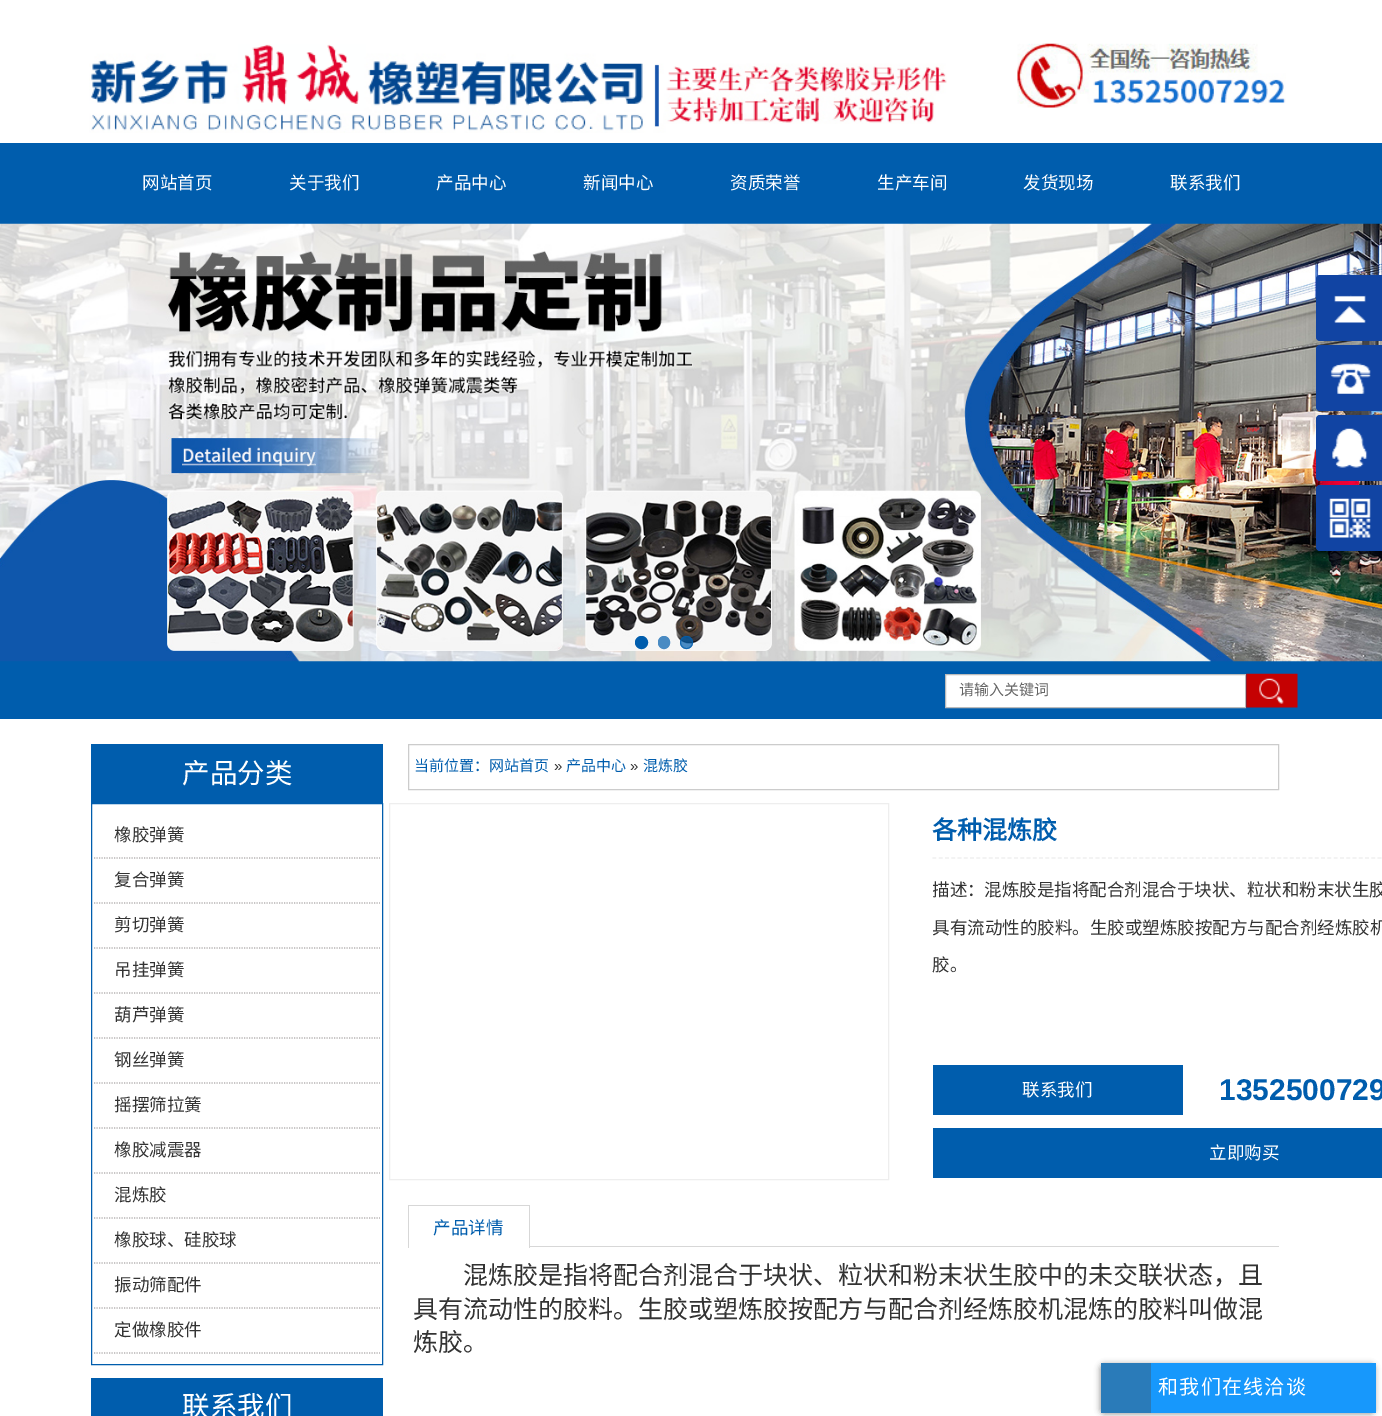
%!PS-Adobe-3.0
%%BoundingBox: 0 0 1382 1416
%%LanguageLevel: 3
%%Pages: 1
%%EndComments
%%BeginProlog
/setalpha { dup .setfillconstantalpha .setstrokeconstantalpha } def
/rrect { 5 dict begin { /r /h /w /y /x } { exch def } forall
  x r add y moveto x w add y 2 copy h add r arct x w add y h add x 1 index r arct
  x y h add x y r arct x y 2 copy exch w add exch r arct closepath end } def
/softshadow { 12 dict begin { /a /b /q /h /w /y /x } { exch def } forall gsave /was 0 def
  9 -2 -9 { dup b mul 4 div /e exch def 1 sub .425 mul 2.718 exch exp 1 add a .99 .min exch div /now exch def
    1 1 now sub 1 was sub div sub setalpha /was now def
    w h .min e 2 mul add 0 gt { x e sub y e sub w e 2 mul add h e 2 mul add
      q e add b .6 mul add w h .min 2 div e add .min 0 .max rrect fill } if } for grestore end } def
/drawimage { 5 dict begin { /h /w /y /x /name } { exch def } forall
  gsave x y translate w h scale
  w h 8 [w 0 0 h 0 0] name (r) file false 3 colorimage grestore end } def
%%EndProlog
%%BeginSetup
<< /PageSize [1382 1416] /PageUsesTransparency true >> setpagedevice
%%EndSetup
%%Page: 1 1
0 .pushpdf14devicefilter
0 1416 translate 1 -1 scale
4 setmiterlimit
1 setgray
0 0 1382 1416 rectfill
(images/1.raw) 89 44 858 89 drawimage
(images/2.raw) 1017 43 269 65 drawimage
0 0.365 0.678 setrgbcolor
0 143 1382 81 rectfill
0 661 1382 58 rectfill
(images/3.raw) 0 223 1382 439 drawimage
newpath 641.5 642.5 6 0 360 arc closepath gsave fill grestore
stroke
0.29 0.545 0.765 setrgbcolor
658.5 636.5 11 12 5.5 rrect gsave fill grestore
stroke
0.7 setalpha
0 0.365 0.678 setrgbcolor
newpath 686.5 642.5 6.5 0 360 arc closepath fill
newpath 686.5 642.5 6 0 360 arc closepath stroke
1 setalpha
0.067 0.267 0.639 setrgbcolor
1316 275 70 66 4 rrect fill
(images/4.raw) 1334 295 32 28 drawimage
1316 345 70 66 4 rrect fill
(images/5.raw) 1330 363 41 31 drawimage
1316 415 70 66 4 rrect fill
(images/6.raw) 1332 428 36 40 drawimage
1316 485 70 66 4 rrect fill
(images/7.raw) 1329 498 42 40 drawimage
1 setgray
newpath 945.5 674.5 moveto 1245.5 674.5 lineto 1245.5 707.5 lineto 945.5 707.5 lineto closepath gsave fill grestore
0.733 setgray
stroke
(images/8.raw) 1246 673 52 35 drawimage
0 0.365 0.678 setrgbcolor
91 744 292 59 rectfill
91.5 803.5 291 561 rectstroke
0.706 0.694 0.694 setrgbcolor
1.2 setlinewidth
[1.25 1.25] 0 setdash
newpath 94 858 moveto 380 858 lineto stroke
newpath 94 903 moveto 380 903 lineto stroke
newpath 94 948 moveto 380 948 lineto stroke
newpath 94 993 moveto 380 993 lineto stroke
newpath 94 1038 moveto 380 1038 lineto stroke
newpath 94 1083 moveto 380 1083 lineto stroke
newpath 94 1128 moveto 380 1128 lineto stroke
newpath 94 1173 moveto 380 1173 lineto stroke
newpath 94 1218 moveto 380 1218 lineto stroke
newpath 94 1263 moveto 380 1263 lineto stroke
newpath 94 1308 moveto 380 1308 lineto stroke
newpath 94 1353 moveto 380 1353 lineto stroke
0 0.365 0.678 setrgbcolor
91 1378 292 38 rectfill
0.8 setgray
1 setlinewidth
[] 0 setdash
408.5 744.5 870 45 rectstroke
0.933 setgray
389.5 803.5 499 376 rectstroke
1.2 setlinewidth
[3.75 2.52] 0 setdash
newpath 932.5 858 moveto 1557.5 858 lineto stroke
0 0.365 0.678 setrgbcolor
933 1065 250 50 rectfill
933 1128 449 50 rectfill
0.843 setgray
530 1246 749 1 rectfill
408 1205 122 1 rectfill
529 1205 1 43 rectfill
408 1205 1 43 rectfill
0 setgray
1100 1364 275 50 5 3 0.4 softshadow
0.09 0.596 0.988 setrgbcolor
1151 1363 225 50 rectfill
0.165 0.482 0.725 setrgbcolor
1101 1363 50 50 rectfill
/NotoSansCJKSC-Regular [17.5 0 0 -17.5 0 0] selectfont
1 setgray
142 189 moveto (网站首页) show
289 189 moveto (关于我们) show
436 189 moveto (产品中心) show
583 189 moveto (新闻中心) show
730 189 moveto (资质荣誉) show
877 189 moveto (生产车间) show
1023 189 moveto (发货现场) show
1170 189 moveto (联系我们) show
/NotoSansCJKSC-Regular [15 0 0 -15 0 0] selectfont
0.4 setgray
959 695 moveto (请输入关键词) show
/NotoSansCJKSC-Regular [27.5 0 0 -27.5 0 0] selectfont
1 setgray
182 783 moveto (产品分类) show
/NotoSansCJKSC-Regular [17.5 0 0 -17.5 0 0] selectfont
0.2 setgray
114 841 moveto (橡胶弹簧) show
114 886 moveto (复合弹簧) show
114 931 moveto (剪切弹簧) show
114 976 moveto (吊挂弹簧) show
114 1021 moveto (葫芦弹簧) show
114 1066 moveto (钢丝弹簧) show
114 1111 moveto (摇摆筛拉簧) show
114 1156 moveto (橡胶减震器) show
114 1201 moveto (混炼胶) show
114 1246 moveto (橡胶球、硅胶球) show
114 1291 moveto (振动筛配件) show
114 1336 moveto (定做橡胶件) show
/NotoSansCJKSC-Regular [27.5 0 0 -27.5 0 0] selectfont
1 setgray
182 1416 moveto (联系我们) show
/NotoSansCJKSC-Regular [15 0 0 -15 0 0] selectfont
0 0.365 0.678 setrgbcolor
414 771 moveto (当前位置：网站首页) show
/LiberationSans-Regular [15 0 0 -15 0 0] selectfont
0.2 setgray
554 771 moveto (») show
/NotoSansCJKSC-Regular [15 0 0 -15 0 0] selectfont
0 0.365 0.678 setrgbcolor
566 771 moveto (产品中心) show
/LiberationSans-Regular [15 0 0 -15 0 0] selectfont
0.2 setgray
630 771 moveto (») show
/NotoSansCJKSC-Regular [15 0 0 -15 0 0] selectfont
0 0.365 0.678 setrgbcolor
643 771 moveto (混炼胶) show
/NotoSansCJKSC-Bold [25 0 0 -25 0 0] selectfont
932 839 moveto (各种混炼胶) show
gsave
933 871 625 182 rectclip
/NotoSansCJKSC-Regular [17.5 0 0 -17.5 0 0] selectfont
0.2 setgray
932 896 moveto (描述：) show
grestore
/NotoSansCJKSC-Regular [17.5 0 0 -17.5 0 0] selectfont
0.2 setgray
984 896 moveto (混炼胶是指将配合剂混合于块状、粒状和粉末状生胶) show
gsave
933 871 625 182 rectclip
932 934 moveto (具有流动性的胶料。生胶或塑炼胶按配方与配合剂经炼胶机) show
grestore
932 971 moveto (胶。) show
1 setgray
1022 1096 moveto (联系我们) show
/LiberationSans-Bold [30 0 0 -30 0 0] selectfont
0 0.365 0.678 setrgbcolor
1219 1100 moveto (1352500729) show
/NotoSansCJKSC-Regular [17.5 0 0 -17.5 0 0] selectfont
1 setgray
1209 1159 moveto (立即购买) show
0 0.365 0.678 setrgbcolor
433 1234 moveto (产品详情) show
/NotoSansCJKSC-Regular [25 0 0 -25 0 0] selectfont
0.2 setgray
463 1284 moveto (混炼胶是指将配合剂混合于块状、粒状和粉末状生胶中的未交联状态，且) show
413 1318 moveto (具有流动性的胶料。生胶或塑炼胶按配方与配合剂经炼胶机混炼的胶料叫做混) show
413 1351 moveto (炼胶。) show
/NotoSansCJKSC-Regular [20 0 0 -20 0 0] selectfont
1 setgray
1158 1394 moveto 1.25 0 (和我们在线洽谈) ashow
.poppdf14devicefilter showpage
%%EOF
